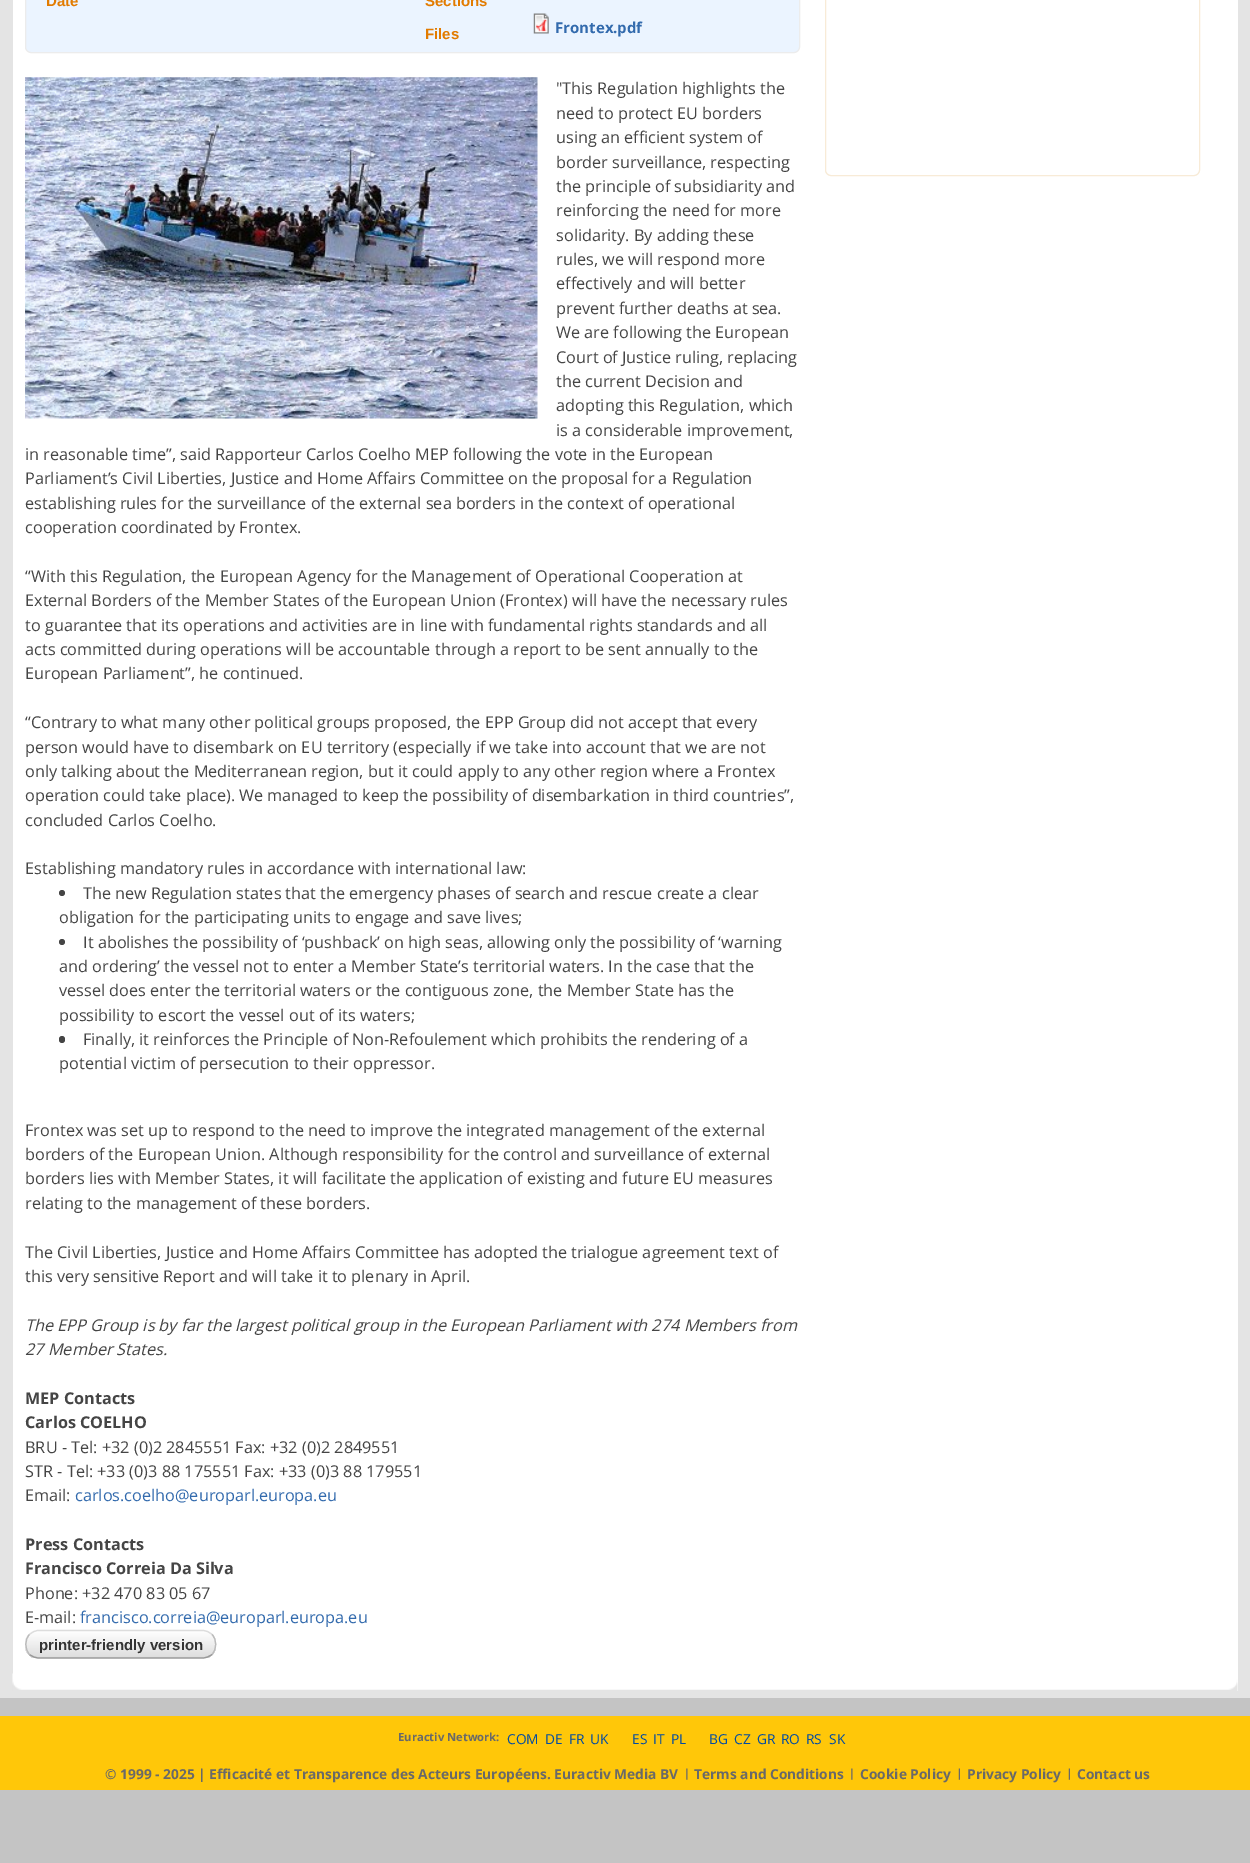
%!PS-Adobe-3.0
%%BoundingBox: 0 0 1250 1863
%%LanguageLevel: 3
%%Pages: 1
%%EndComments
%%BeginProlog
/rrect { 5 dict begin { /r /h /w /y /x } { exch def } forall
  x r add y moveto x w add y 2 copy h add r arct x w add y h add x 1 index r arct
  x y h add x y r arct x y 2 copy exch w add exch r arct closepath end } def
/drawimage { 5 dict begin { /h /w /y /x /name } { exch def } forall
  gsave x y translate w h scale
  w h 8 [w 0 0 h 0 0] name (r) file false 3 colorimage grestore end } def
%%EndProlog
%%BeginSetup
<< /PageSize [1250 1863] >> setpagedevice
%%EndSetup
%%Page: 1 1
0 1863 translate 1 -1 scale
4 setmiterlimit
0.769 setgray
0 0 1250 1863 rectfill
0.894 setgray
0 0 1250 1698 rectfill
1 setgray
13 0 1225 1691 rectfill
(images/1.raw) 12 1673 1226 18 drawimage
0.922 0.957 1 setrgbcolor
newpath 25.5 -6.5 moveto 799.5 -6.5 lineto 799.5 47 lineto 799.5 50 797 52.5 794 52.5 curveto 31 52.5 lineto 28 52.5 25.5 50 25.5 47 curveto closepath gsave fill grestore
0.925 setgray
stroke
(images/2.raw) 533 13 16 21 drawimage
(images/3.raw) 25 77 513 342 drawimage
0.271 setgray
newpath 62 893 3 0 360 arc closepath fill
newpath 62 942 3 0 360 arc closepath fill
59 1036 6 7 3 rrect fill
gsave
25 1630 191 29 14 rrect clip newpath
gsave newpath 25 1631 moveto 216 1631 lineto 216 1658 lineto 25 1658 lineto closepath clip newpath
<< /ShadingType 2 /ColorSpace /DeviceRGB /Coords [26 1631 26 1658] /Extend [true true] /Function << /FunctionType 2 /Domain [0 1] /C0 [1 1 1] /C1 [0.867 0.867 0.867] /N 1 >> >> shfill grestore
grestore
0.867 setgray
1.2 setlinewidth
newpath 29.5 1634.5 moveto 32 1632 35.5 1630.5 38.5 1630.5 curveto 202.5 1630.5 lineto 206 1630.5 209.5 1632 212 1634.5 curveto stroke
0.733 setgray
newpath 212 1634.5 moveto 217 1639.5 217 1649 212 1654.5 curveto stroke
0.6 setgray
newpath 212 1654.5 moveto 209.5 1656.5 206 1658 202.5 1658 curveto 39 1658 lineto 35.5 1658 32 1656.5 29.5 1654.5 curveto stroke
0.733 setgray
newpath 29.5 1654.5 moveto 24.5 1649 24.5 1639.5 29.5 1634.5 curveto stroke
0.973 0.922 0.843 setrgbcolor
1 setlinewidth
825.5 -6.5 374 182 5.5 rrect stroke
1 0.78 0.035 setrgbcolor
0 1716 1250 74 rectfill
(images/4.raw) 686 1768 2 12 drawimage
(images/4.raw) 851 1768 2 12 drawimage
(images/5.raw) 958 1768 2 12 drawimage
(images/5.raw) 1068 1768 2 12 drawimage
/LiberationSans-Bold [15 0 0 -15 0 0] selectfont
0.886 0.482 0 setrgbcolor
46 6 moveto (Date) show
425 6 moveto (Sections) show
425 39 moveto (Files) show
/OpenSans-Bold [15 0 0 -15 0 0] selectfont
0.196 0.416 0.678 setrgbcolor
555 33 moveto (Frontex.pdf) show
/OpenSans-Regular [16.25 0 0 -16.25 0 0] selectfont
0.271 setgray
556 94 moveto ("This Regulation highlights the) show
556 119 moveto (need to protect EU borders) show
556 143 moveto (using an efficient system of) show
556 168 moveto (border surveillance, respecting) show
556 192 moveto (the principle of subsidiarity and) show
556 216 moveto (reinforcing the need for more) show
556 241 moveto (solidarity. By adding these) show
556 265 moveto (rules, we will respond more) show
556 289 moveto (effectively and will better) show
556 314 moveto (prevent further deaths at sea.) show
556 338 moveto (We are following the European) show
556 363 moveto (Court of Justice ruling, replacing) show
556 387 moveto (the current Decision and) show
556 411 moveto (adopting this Regulation, which) show
556 436 moveto (is a considerable improvement,) show
25 460 moveto (in reasonable time”, said Rapporteur Carlos Coelho MEP following the vote in the European) show
25 484 moveto (Parliament’s Civil Liberties, Justice and Home Affairs Committee on the proposal for a Regulation) show
25 509 moveto (establishing rules for the surveillance of the external sea borders in the context of operational) show
25 533 moveto (cooperation coordinated by Frontex.) show
25 582 moveto (“With this Regulation, the European Agency for the Management of Operational Cooperation at) show
25 606 moveto (External Borders of the Member States of the European Union \(Frontex\) will have the necessary rules) show
25 631 moveto (to guarantee that its operations and activities are in line with fundamental rights standards and all) show
25 655 moveto (acts committed during operations will be accountable through a report to be sent annually to the) show
25 679 moveto (European Parliament”, he continued.) show
25 728 moveto (“Contrary to what many other political groups proposed, the EPP Group did not accept that every) show
25 753 moveto (person would have to disembark on EU territory \(especially if we take into account that we are not) show
25 777 moveto (only talking about the Mediterranean region, but it could apply to any other region where a Frontex) show
25 801 moveto (operation could take place\). We managed to keep the possibility of disembarkation in third countries”,) show
25 826 moveto (concluded Carlos Coelho.) show
25 874 moveto (Establishing mandatory rules in accordance with international law:) show
83 899 moveto (The new Regulation states that the emergency phases of search and rescue create a clear) show
59 923 moveto (obligation for the participating units to engage and save lives;) show
83 948 moveto (It abolishes the possibility of ‘pushback’ on high seas, allowing only the possibility of ‘warning) show
59 972 moveto (and ordering’ the vessel not to enter a Member State’s territorial waters. In the case that the) show
59 996 moveto (vessel does enter the territorial waters or the contiguous zone, the Member State has the) show
59 1021 moveto (possibility to escort the vessel out of its waters;) show
83 1045 moveto (Finally, it reinforces the Principle of Non-Refoulement which prohibits the rendering of a) show
59 1069 moveto (potential victim of persecution to their oppressor.) show
25 1136 moveto (Frontex was set up to respond to the need to improve the integrated management of the external) show
25 1160 moveto (borders of the European Union. Although responsibility for the control and surveillance of external) show
25 1184 moveto (borders lies with Member States, it will facilitate the application of existing and future EU measures) show
25 1209 moveto (relating to the management of these borders.) show
25 1258 moveto (The Civil Liberties, Justice and Home Affairs Committee has adopted the trialogue agreement text of) show
25 1282 moveto (this very sensitive Report and will take it to plenary in April.) show
/OpenSans-Italic [16.25 0 0 -16.25 0 0] selectfont
25 1331 moveto (The EPP Group is by far the largest political group in the European Parliament with 274 Members from) show
25 1355 moveto (27 Member States.) show
/OpenSans-Bold [16.25 0 0 -16.25 0 0] selectfont
25 1404 moveto (MEP Contacts) show
25 1428 moveto (Carlos COELHO) show
/OpenSans-Regular [16.25 0 0 -16.25 0 0] selectfont
25 1453 moveto (BRU - Tel: +32 \(0\)2 2845551 Fax: +32 \(0\)2 2849551) show
25 1477 moveto (STR - Tel: +33 \(0\)3 88 175551 Fax: +33 \(0\)3 88 179551) show
25 1501 moveto (Email:) show
0.196 0.416 0.678 setrgbcolor
75 1501 moveto (carlos.coelho@europarl.europa.eu) show
/OpenSans-Bold [16.25 0 0 -16.25 0 0] selectfont
0.271 setgray
25 1550 moveto (Press Contacts) show
25 1574 moveto (Francisco Correia Da Silva) show
/OpenSans-Regular [16.25 0 0 -16.25 0 0] selectfont
25 1599 moveto (Phone: +32 470 83 05 67) show
25 1623 moveto (E-mail:) show
0.196 0.416 0.678 setrgbcolor
80 1623 moveto (francisco.correia@europarl.europa.eu) show
/LiberationSans-Bold [15 0 0 -15 0 0] selectfont
0.2 setgray
39 1650 moveto (printer-friendly version) show
/OpenSans-Bold [11.25 0 0 -11.25 0 0] selectfont
0.412 setgray
398 1741 moveto (Euractiv Network:) show
/OpenSans-Regular [13.75 0 0 -13.75 0 0] selectfont
0.004 0.294 0.639 setrgbcolor
507 1744 moveto (COM) show
545 1744 moveto (DE) show
569 1744 moveto (FR) show
590 1744 moveto (UK) show
632 1744 moveto (ES) show
653 1744 moveto (IT) show
671 1744 moveto (PL) show
709 1744 moveto (BG) show
734 1744 moveto (CZ) show
757 1744 moveto (GR) show
781 1744 moveto (RO) show
806 1744 moveto (RS) show
829 1744 moveto (SK) show
/OpenSans-Bold [13.75 0 0 -13.75 0 0] selectfont
0.412 setgray
105 1779 moveto (© 1999 - 2025 | Efficacité et Transparence des Acteurs Européens. Euractiv Media BV) show
694 1779 moveto (Terms and Conditions) show
860 1779 moveto (Cookie Policy) show
967 1779 moveto (Privacy Policy) show
1077 1779 moveto (Contact us) show
showpage
%%EOF
